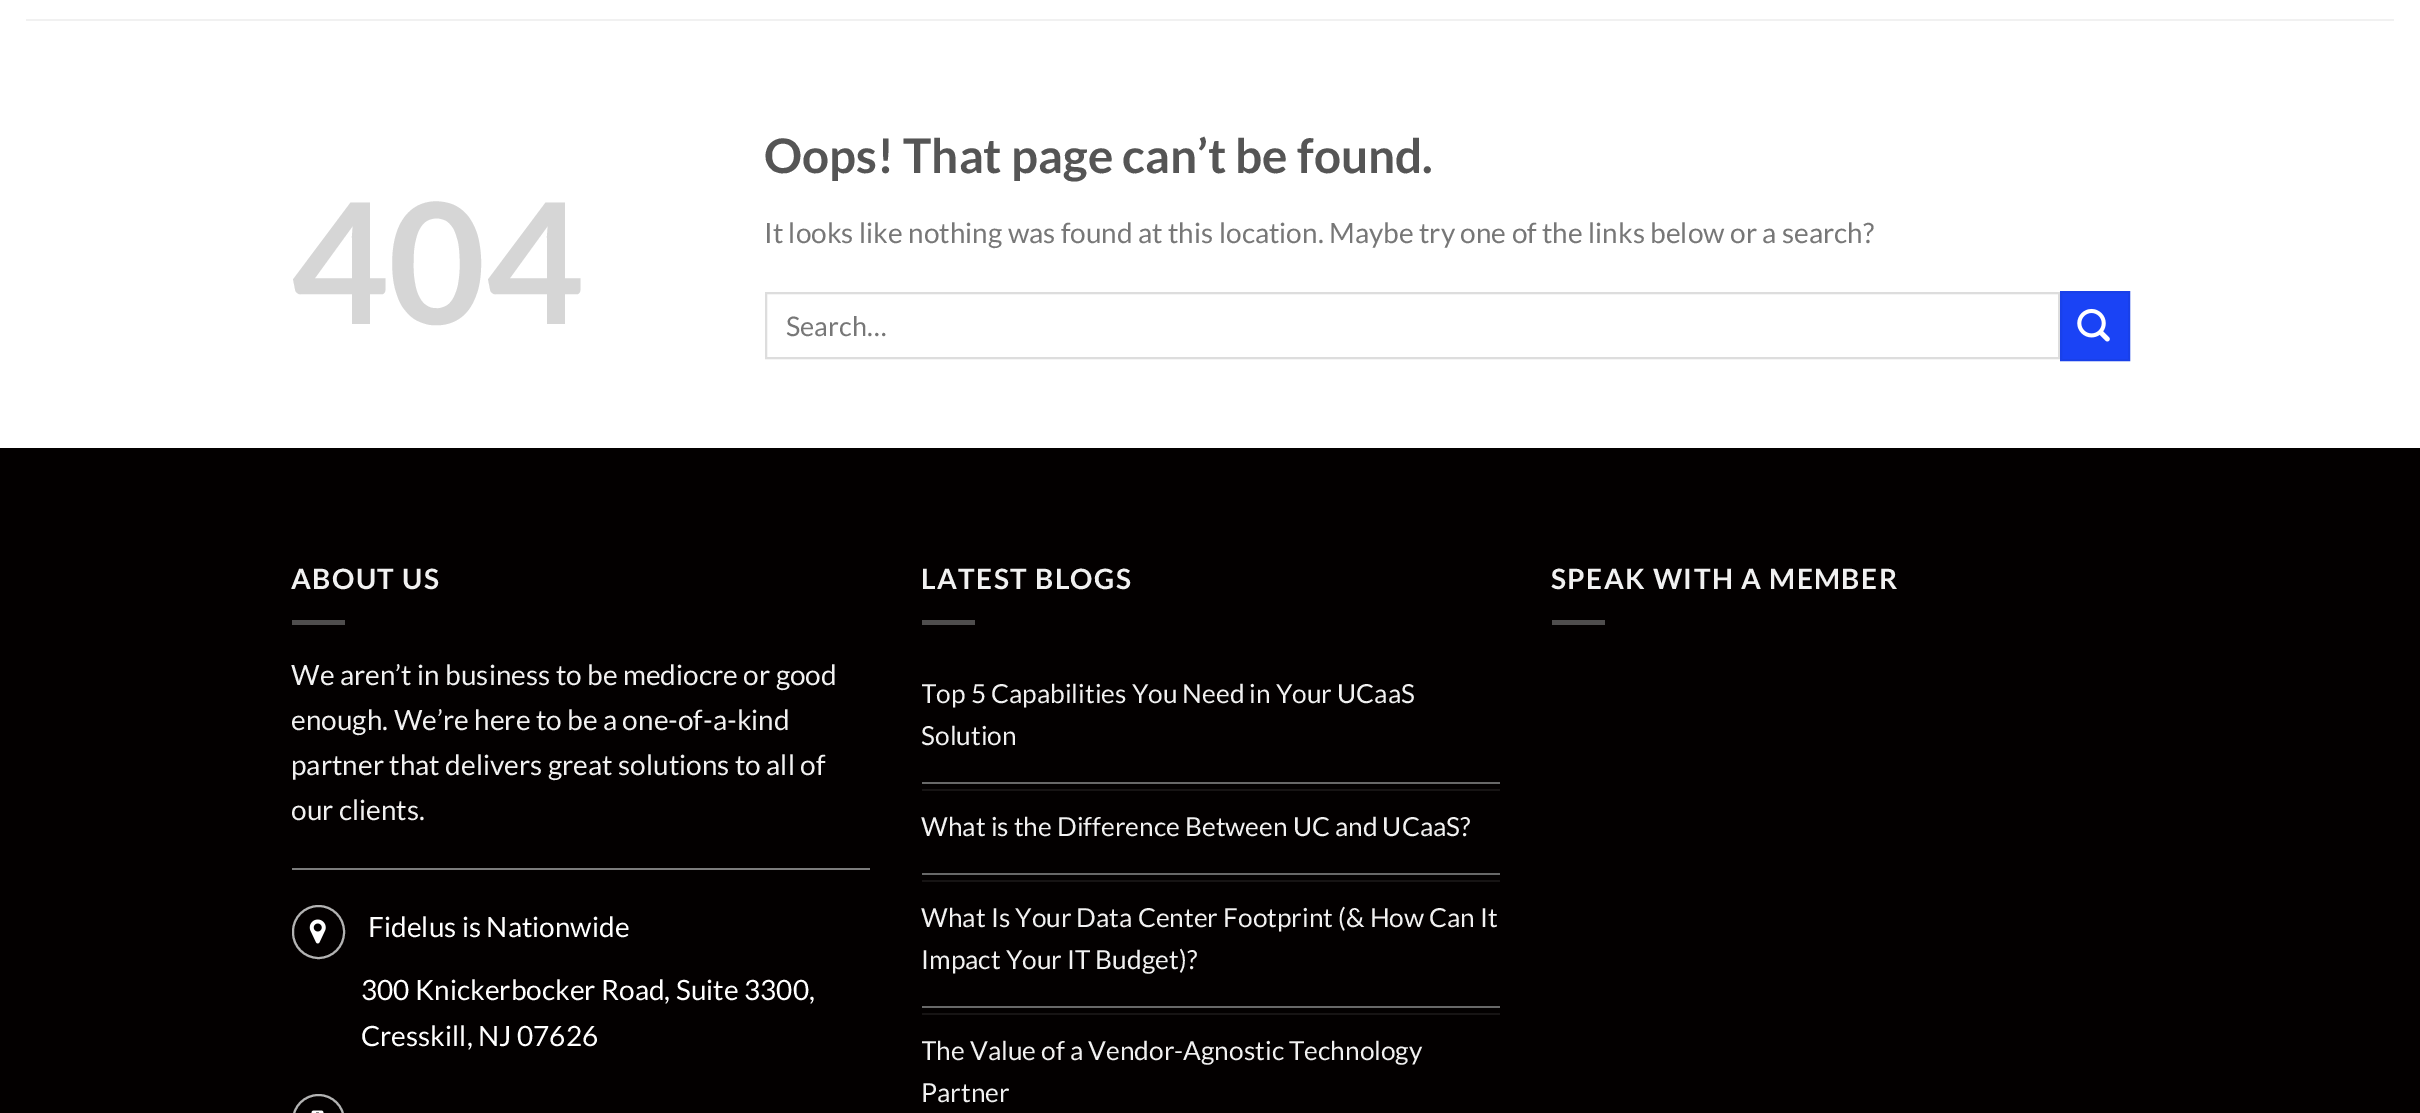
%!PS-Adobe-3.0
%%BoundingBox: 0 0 2420 1113
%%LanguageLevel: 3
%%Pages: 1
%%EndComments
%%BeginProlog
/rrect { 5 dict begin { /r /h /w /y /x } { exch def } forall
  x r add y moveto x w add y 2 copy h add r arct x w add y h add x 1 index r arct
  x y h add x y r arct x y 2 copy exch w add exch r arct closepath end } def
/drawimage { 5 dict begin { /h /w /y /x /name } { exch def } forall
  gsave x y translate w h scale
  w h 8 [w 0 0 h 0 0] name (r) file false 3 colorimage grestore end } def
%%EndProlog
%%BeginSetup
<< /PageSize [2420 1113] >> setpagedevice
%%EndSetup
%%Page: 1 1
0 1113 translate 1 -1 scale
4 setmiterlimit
1 setgray
0 0 2420 1113 rectfill
0.945 setgray
26 19 2368 2 rectfill
0.867 setgray
2 setlinewidth
766 293 1293 65 rectstroke
0.102 0.263 0.961 setrgbcolor
newpath 2061 292 moveto 2129 292 lineto 2129 360 lineto 2061 360 lineto closepath gsave fill grestore
0.098 0.251 0.914 setrgbcolor
stroke
(images/1.raw) 2077 308 33 34 drawimage
0.012 0 0 setrgbcolor
0 448 2420 665 rectfill
0.31 0.302 0.302 setrgbcolor
292 620 53 5 rectfill
0.486 setgray
292 868 578 2 rectfill
0.702 setgray
293 906 51 52 25.5 rrect stroke
(images/2.raw) 309 919 17 25 drawimage
293 1095 51 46 25.5 rrect stroke
(images/3.raw) 311 1110 13 3 drawimage
0.31 0.302 0.302 setrgbcolor
922 620 53 5 rectfill
0.408 setgray
922 782 578 2 rectfill
0.09 0.078 0.078 setrgbcolor
922 789 578 2 rectfill
0.408 setgray
922 873 578 2 rectfill
0.09 0.078 0.078 setrgbcolor
922 880 578 2 rectfill
0.408 setgray
922 1006 578 2 rectfill
0.09 0.078 0.078 setrgbcolor
922 1013 578 2 rectfill
0.31 0.302 0.302 setrgbcolor
1552 620 53 5 rectfill
/Lato-Bold [168 0 0 -168 0 0] selectfont
0.839 setgray
291 324 moveto (404) show
/Lato-Bold [47.6 0 0 -47.6 0 0] selectfont
0.333 setgray
764 173 moveto (Oops! That page can’t be found.) show
/Lato-Regular [28 0 0 -28 0 0] selectfont
0.467 setgray
764 243 moveto (It looks like nothing was found at this location. Maybe try one of the links below or a search?) show
/Lato-Regular [27 0 0 -27 0 0] selectfont
786 336 moveto (Search…) show
/Lato-Bold [28 0 0 -28 0 0] selectfont
0.945 setgray
291 589 moveto 1.4 0 (ABOUT US) ashow
/Lato-Regular [28 0 0 -28 0 0] selectfont
291 685 moveto (We aren’t in business to be mediocre or good) show
291 730 moveto (enough. We’re here to be a one-of-a-kind) show
291 775 moveto (partner that delivers great solutions to all of) show
291 820 moveto (our clients.) show
1 setgray
368 937 moveto (Fidelus is Nationwide) show
361 1000 moveto (300 Knickerbocker Road, Suite 3300,) show
361 1046 moveto (Cresskill, NJ 07626) show
/Lato-Bold [28 0 0 -28 0 0] selectfont
0.945 setgray
921 589 moveto 1.4 0 (LATEST BLOGS) ashow
gsave
922 672 578 84 rectclip
/Lato-Regular [26.25 0 0 -26.25 0 0] selectfont
921 703 moveto (Top 5 Capabilities You Need in Your UCaaS) show
grestore
/Lato-Regular [26.25 0 0 -26.25 0 0] selectfont
921 745 moveto (Solution) show
921 836 moveto (What is the Difference Between UC and UCaaS?) show
921 927 moveto (What Is Your Data Center Footprint \(& How Can It) show
921 969 moveto (Impact Your IT Budget\)?) show
gsave
922 1029 578 84 rectclip
921 1060 moveto (The Value of a Vendor-Agnostic Technology) show
grestore
921 1102 moveto (Partner) show
/Lato-Bold [28 0 0 -28 0 0] selectfont
1551 589 moveto 1.4 0 (SPEAK WITH A MEMBER) ashow
showpage
%%EOF
